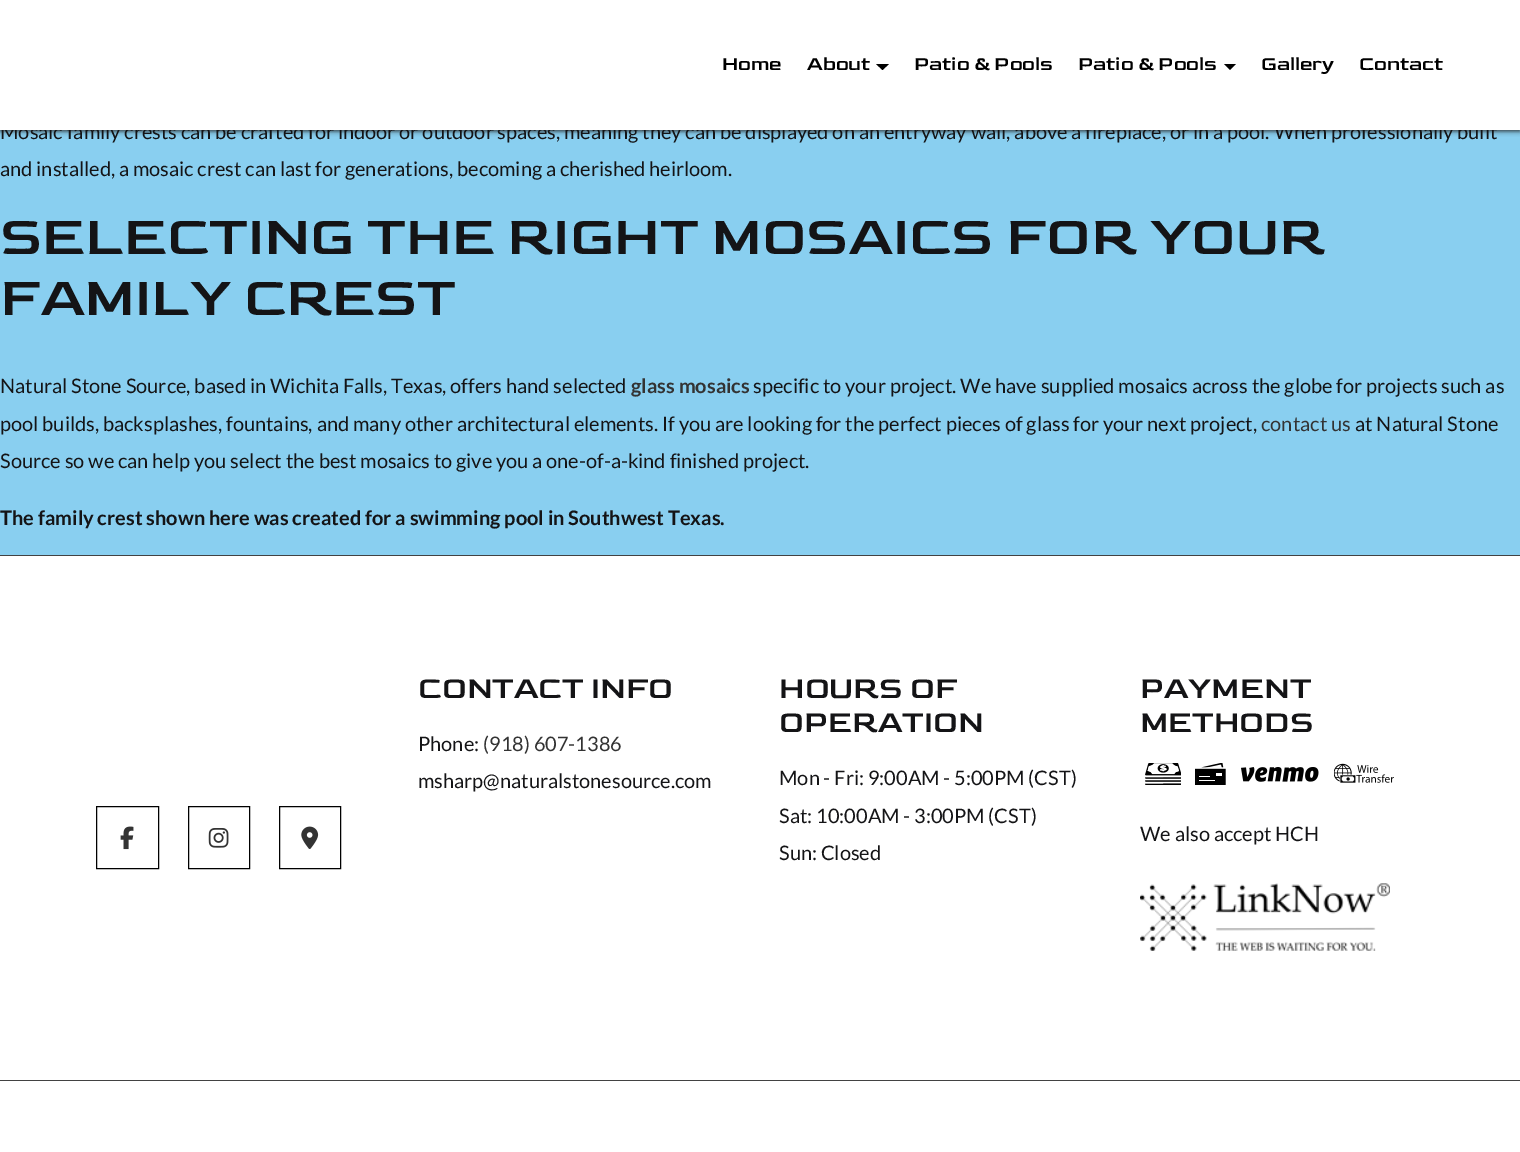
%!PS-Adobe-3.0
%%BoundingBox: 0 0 1520 1152
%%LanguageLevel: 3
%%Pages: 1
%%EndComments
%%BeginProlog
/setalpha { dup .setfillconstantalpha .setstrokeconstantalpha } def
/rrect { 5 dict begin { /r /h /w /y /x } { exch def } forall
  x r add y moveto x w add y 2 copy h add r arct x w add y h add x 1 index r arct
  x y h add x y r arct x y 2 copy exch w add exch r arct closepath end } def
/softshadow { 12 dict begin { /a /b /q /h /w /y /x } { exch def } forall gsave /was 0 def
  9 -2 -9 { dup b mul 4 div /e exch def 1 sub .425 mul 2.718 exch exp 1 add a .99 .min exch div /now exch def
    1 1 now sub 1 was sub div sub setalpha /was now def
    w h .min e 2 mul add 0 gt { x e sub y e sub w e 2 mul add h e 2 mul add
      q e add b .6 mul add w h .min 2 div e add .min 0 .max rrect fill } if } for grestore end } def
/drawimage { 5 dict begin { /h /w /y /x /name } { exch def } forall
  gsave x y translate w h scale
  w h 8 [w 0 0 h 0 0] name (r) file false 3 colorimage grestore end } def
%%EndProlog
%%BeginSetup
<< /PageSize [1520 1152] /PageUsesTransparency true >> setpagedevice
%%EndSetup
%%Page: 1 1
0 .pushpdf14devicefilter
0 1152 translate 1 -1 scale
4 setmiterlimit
0.537 0.812 0.941 setrgbcolor
0 0 1520 1152 rectfill
0.149 setgray
0 1 1520 130 0 2.5 1 softshadow
1 setgray
0 556 1520 524 rectfill
0.259 setgray
0 555 1520 1 rectfill
0 setgray
96.5 806.5 62 62 rectstroke
(images/1.raw) 120 826 14 24 drawimage
188.5 806.5 61 62 rectstroke
(images/2.raw) 208 828 21 20 drawimage
279.5 806.5 61 62 rectstroke
(images/3.raw) 301 826 18 23 drawimage
(images/4.raw) 1145 763 36 22 drawimage
(images/5.raw) 1195 763 31 22 drawimage
(images/6.raw) 1241 767 78 15 drawimage
(images/7.raw) 1334 763 60 20 drawimage
(images/8.raw) 1140 883 250 68 drawimage
1 setgray
0 1081 1520 71 rectfill
0.259 setgray
0 1080 1520 1 rectfill
/Lato-Regular [20 0 0 -20 0 0] selectfont
0.078 0.078 0.086 setrgbcolor
0 139 moveto (Mosaic family crests can be crafted for indoor or outdoor spaces, meaning they can be displayed on an entryway wall, above a fireplace, or in a pool. When professionally built) show
1 setgray
0 0 1520 130 rectfill
/Goldman-Regular [20 0 0 -20 0 0] selectfont
0 setgray
1359 70 moveto (Contact) show
1261 70 moveto (Gallery) show
newpath 1224 64 moveto 1236 64 lineto 1230 70 lineto closepath fill
1078 70 moveto (Patio & Pools) show
914 70 moveto (Patio & Pools) show
newpath 876 64 moveto 889 64 lineto 882.5 70 lineto closepath fill
807 70 moveto (About) show
722 70 moveto (Home) show
/Lato-Regular [20 0 0 -20 0 0] selectfont
0.078 0.078 0.086 setrgbcolor
0 176 moveto (and installed, a mosaic crest can last for generations, becoming a cherished heirloom.) show
/Goldman-Regular [56 0 0 -56 0 0] selectfont
0 254 moveto (SELECTING THE RIGHT MOSAICS FOR YOUR) show
0 315 moveto (FAMILY CREST) show
/Lato-Regular [20 0 0 -20 0 0] selectfont
0 393 moveto (Natural Stone Source, based in Wichita Falls, Texas, offers hand selected) show
/Lato-Bold [20 0 0 -20 0 0] selectfont
0.2 setgray
631 393 moveto (glass mosaics) show
/Lato-Regular [20 0 0 -20 0 0] selectfont
0.078 0.078 0.086 setrgbcolor
753 393 moveto (specific to your project. We have supplied mosaics across the globe for projects such as) show
0 431 moveto (pool builds, backsplashes, fountains, and many other architectural elements. If you are looking for the perfect pieces of glass for your next project,) show
0.2 setgray
1261 431 moveto (contact us) show
0.078 0.078 0.086 setrgbcolor
1355 431 moveto (at Natural Stone) show
0 468 moveto (Source so we can help you select the best mosaics to give you a one-of-a-kind finished project.) show
/Lato-Bold [20 0 0 -20 0 0] selectfont
0 525 moveto (The family crest shown here was created for a swimming pool in Southwest Texas.) show
/Goldman-Regular [31.25 0 0 -31.25 0 0] selectfont
418 698 moveto (CONTACT INFO) show
/Lato-Regular [20 0 0 -20 0 0] selectfont
418 751 moveto (Phone:) show
0.2 setgray
483 751 moveto (\(918\) 607-1386) show
0.078 0.078 0.086 setrgbcolor
418 788 moveto (msharp@naturalstonesource.com) show
/Goldman-Regular [31.25 0 0 -31.25 0 0] selectfont
779 698 moveto (HOURS OF) show
779 732 moveto (OPERATION) show
/Lato-Regular [20 0 0 -20 0 0] selectfont
779 785 moveto (Mon - Fri: 9:00AM - 5:00PM \(CST\)) show
779 823 moveto (Sat: 10:00AM - 3:00PM \(CST\)) show
779 860 moveto (Sun: Closed) show
/Goldman-Regular [31.25 0 0 -31.25 0 0] selectfont
1140 698 moveto (PAYMENT) show
1140 732 moveto (METHODS) show
/Lato-Regular [20 0 0 -20 0 0] selectfont
1140 841 moveto (We also accept HCH) show
.poppdf14devicefilter showpage
%%EOF
